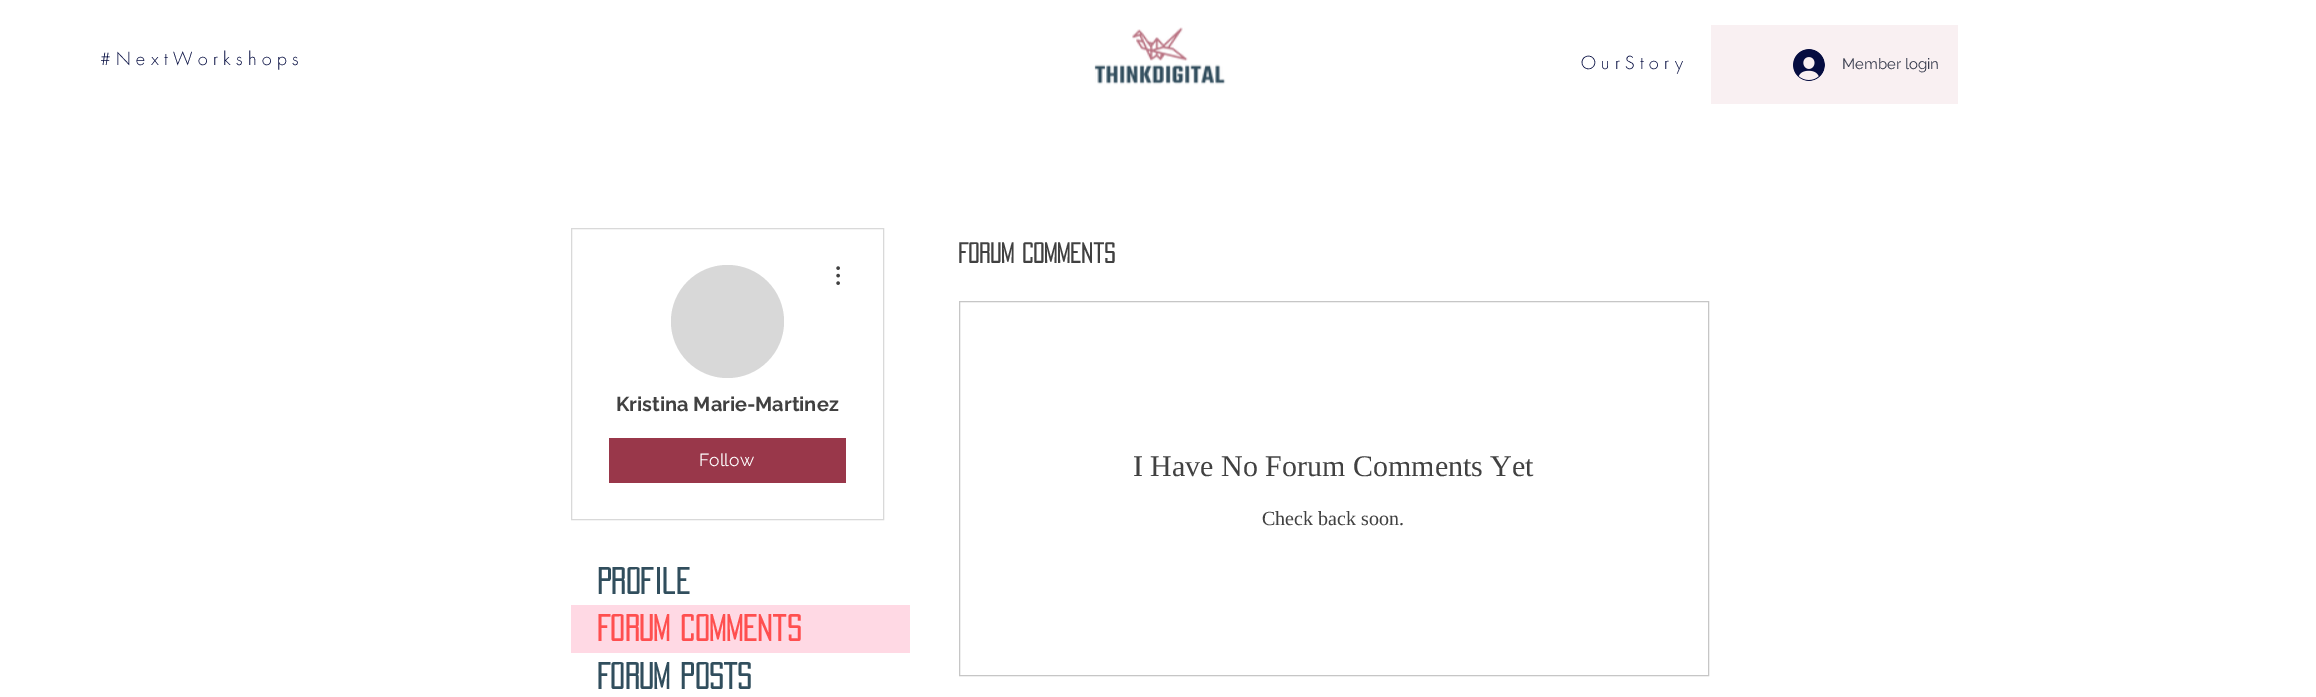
%!PS-Adobe-3.0
%%BoundingBox: 0 0 2316 697
%%LanguageLevel: 3
%%Pages: 1
%%EndComments
%%BeginProlog
/drawimage { 5 dict begin { /h /w /y /x /name } { exch def } forall
  gsave x y translate w h scale
  w h 8 [w 0 0 h 0 0] name (r) file false 3 colorimage grestore end } def
%%EndProlog
%%BeginSetup
<< /PageSize [2316 697] >> setpagedevice
%%EndSetup
%%Page: 1 1
0 697 translate 1 -1 scale
4 setmiterlimit
1 setgray
0 0 2316 697 rectfill
(images/1.raw) 1094 27 132 58 drawimage
0.976 0.941 0.949 setrgbcolor
1711 25 247 79 rectfill
(images/2.raw) 1793 49 32 32 drawimage
0.851 setgray
571.5 228.5 312 291 rectstroke
0.847 setgray
newpath 727.5 321.5 56.5 0 360 arc closepath fill
(images/3.raw) 836 266 4 19 drawimage
0.6 0.216 0.29 setrgbcolor
609 438 237 45 rectfill
1 0.851 0.894 setrgbcolor
571 605 339 48 rectfill
0.776 setgray
959.5 301.5 749 374 rectstroke
/futura-Light [17.5 0 0 -17.5 0 0] selectfont
0.024 0.051 0.255 setrgbcolor
100 65 moveto (# N e x t W o r k s h o p s) show
1581 69 moveto (O u r S t o r y) show
/Raleway-Regular [15 0 0 -15 0 0] selectfont
0.216 0.231 0.302 setrgbcolor
1842 69 moveto (Member login) show
/Raleway-Bold [20 0 0 -20 0 0] selectfont
0.255 setgray
616 411 moveto (Kristina Marie-Martinez) show
/Raleway-Regular [17.5 0 0 -17.5 0 0] selectfont
1 setgray
699 466 moveto (Follow) show
/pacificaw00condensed-Bold [32.5 0 0 -32.5 0 0] selectfont
0.192 0.306 0.365 setrgbcolor
597 594 moveto (Profile) show
1 0.31 0.31 setrgbcolor
597 641 moveto (Forum Comments) show
0.192 0.306 0.365 setrgbcolor
597 689 moveto (Forum Posts) show
/pacificaw00condensed-Bold [25 0 0 -25 0 0] selectfont
0.255 setgray
958 263 moveto (Forum Comments) show
/LiberationSerif-Regular [30 0 0 -30 0 0] selectfont
1133 476 moveto (I Have No Forum Comments Yet) show
/LiberationSerif-Regular [20 0 0 -20 0 0] selectfont
1262 525 moveto (Check back soon.) show
showpage
%%EOF
